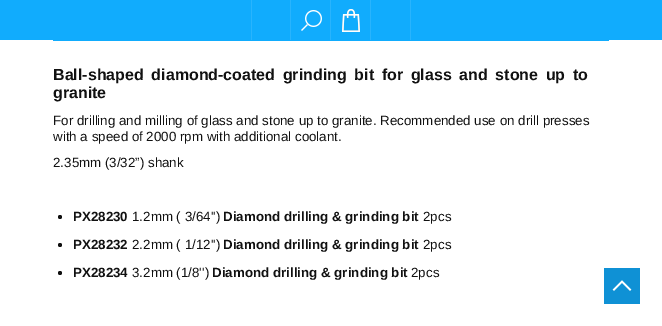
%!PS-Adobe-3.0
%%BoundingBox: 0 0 662 326
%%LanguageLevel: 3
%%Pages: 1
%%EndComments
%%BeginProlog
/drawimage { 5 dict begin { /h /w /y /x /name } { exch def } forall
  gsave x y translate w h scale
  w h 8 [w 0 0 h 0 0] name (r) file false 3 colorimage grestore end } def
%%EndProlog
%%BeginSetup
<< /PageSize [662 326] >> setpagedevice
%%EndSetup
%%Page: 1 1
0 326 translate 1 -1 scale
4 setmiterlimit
1 setgray
0 0 662 326 rectfill
0.067 0.675 0.992 setrgbcolor
0 0 662 40 rectfill
0.161 0.706 0.992 setrgbcolor
290 0 1 40 rectfill
251 0 1 40 rectfill
(images/1.raw) 301 10 21 21 drawimage
330 0 1 40 rectfill
(images/2.raw) 342 9 18 23 drawimage
370 0 1 40 rectfill
410 0 1 40 rectfill
0.067 0.675 0.992 setrgbcolor
53 40 556 1 rectfill
0.067 setgray
newpath 60 217 2 0 360 arc closepath fill
newpath 60 245 2 0 360 arc closepath fill
newpath 60 273 2 0 360 arc closepath fill
0.059 0.569 0.835 setrgbcolor
604 268 36 36 rectfill
(images/3.raw) 612 280 20 11 drawimage
/LiberationSans-Bold [16 0 0 -16 0 0] selectfont
0.067 setgray
53 80 moveto 3.25 0 32 (Ball-shaped diamond-coated grinding bit for glass and stone up to) widthshow
53 98 moveto (granite) show
/LiberationSans-Regular [13.35 0 0 -13.35 0 0] selectfont
53 125 moveto (For drilling and milling of glass and stone up to granite. Recommended use on drill presses) show
53 141 moveto (with a speed of 2000 rpm with additional coolant.) show
53 167 moveto (2.35mm \(3/32”\) shank) show
/LiberationSans-Bold [13.35 0 0 -13.35 0 0] selectfont
73 221 moveto (PX28230) show
/LiberationSans-Regular [13.35 0 0 -13.35 0 0] selectfont
132 221 moveto (1.2mm \( 3/64''\)) show
/LiberationSans-Bold [13.35 0 0 -13.35 0 0] selectfont
223 221 moveto (Diamond drilling & grinding bit) show
/LiberationSans-Regular [13.35 0 0 -13.35 0 0] selectfont
423 221 moveto (2pcs) show
/LiberationSans-Bold [13.35 0 0 -13.35 0 0] selectfont
73 249 moveto (PX28232) show
/LiberationSans-Regular [13.35 0 0 -13.35 0 0] selectfont
132 249 moveto (2.2mm \( 1/12''\)) show
/LiberationSans-Bold [13.35 0 0 -13.35 0 0] selectfont
223 249 moveto (Diamond drilling & grinding bit) show
/LiberationSans-Regular [13.35 0 0 -13.35 0 0] selectfont
423 249 moveto (2pcs) show
/LiberationSans-Bold [13.35 0 0 -13.35 0 0] selectfont
73 277 moveto (PX28234) show
/LiberationSans-Regular [13.35 0 0 -13.35 0 0] selectfont
132 277 moveto (3.2mm \(1/8''\)) show
/LiberationSans-Bold [13.35 0 0 -13.35 0 0] selectfont
212 277 moveto (Diamond drilling & grinding bit) show
/LiberationSans-Regular [13.35 0 0 -13.35 0 0] selectfont
411 277 moveto (2pcs) show
showpage
%%EOF
